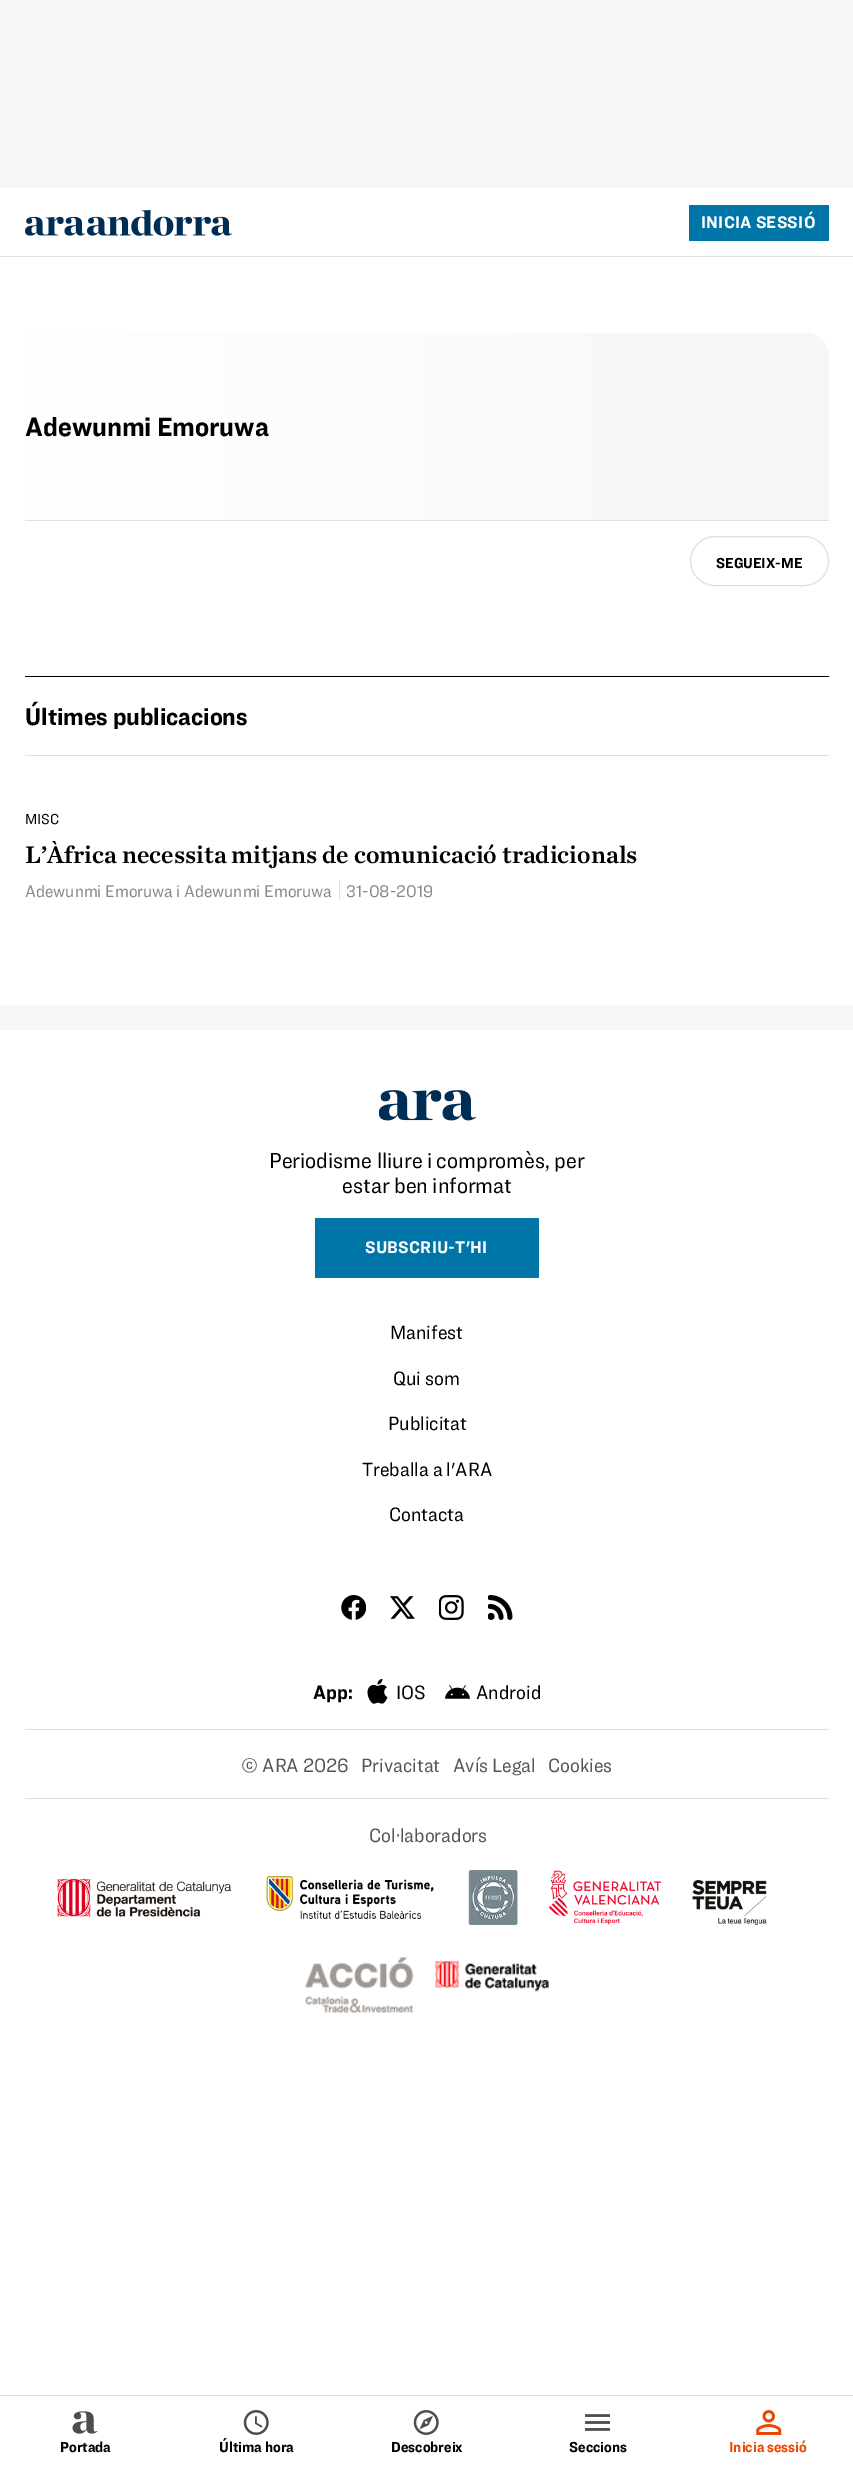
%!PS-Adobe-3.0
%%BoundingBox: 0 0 853 2473
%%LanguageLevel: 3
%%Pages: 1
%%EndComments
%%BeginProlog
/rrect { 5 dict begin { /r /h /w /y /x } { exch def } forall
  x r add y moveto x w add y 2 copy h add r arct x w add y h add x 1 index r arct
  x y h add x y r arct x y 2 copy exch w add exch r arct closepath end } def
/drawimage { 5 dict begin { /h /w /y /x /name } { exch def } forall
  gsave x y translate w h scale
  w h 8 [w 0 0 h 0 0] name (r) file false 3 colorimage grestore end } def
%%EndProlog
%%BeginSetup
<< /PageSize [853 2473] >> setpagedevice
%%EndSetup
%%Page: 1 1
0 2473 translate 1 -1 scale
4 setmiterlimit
1 setgray
0 0 853 2473 rectfill
0.957 0.965 0.973 setrgbcolor
0 0 853 188 rectfill
(images/1.raw) 25 210 207 26 drawimage
0 0.463 0.659 setrgbcolor
689 205 140 36 1 rrect fill
0.847 0.878 0.91 setrgbcolor
0 256 853 1 rectfill
gsave newpath 25 333 moveto 804 333 lineto 818 333 829 344 829 358 curveto 829 520 lineto 25 520 lineto closepath clip newpath
<< /ShadingType 2 /ColorSpace /DeviceRGB /Coords [25 426 829 426] /Extend [true true] /Function << /FunctionType 2 /Domain [0 1] /C0 [1 1 1] /C1 [0.957 0.965 0.973] /N 1 >> >> shfill grestore
25 520 804 1 rectfill
690.5 536.5 138 49 24.5 rrect stroke
0 setgray
25 676 804 1 rectfill
0.847 0.878 0.91 setrgbcolor
25 755 804 1 rectfill
339 880 1 20 rectfill
0.957 0.965 0.973 setrgbcolor
0 1005 853 25 rectfill
(images/2.raw) 379 1090 97 31 drawimage
0 0.463 0.659 setrgbcolor
315 1218 224 60 1 rrect fill
(images/3.raw) 341 1595 25 25 drawimage
(images/4.raw) 390 1596 25 23 drawimage
(images/5.raw) 439 1595 25 25 drawimage
(images/6.raw) 488 1595 25 25 drawimage
(images/7.raw) 367 1679 21 25 drawimage
(images/8.raw) 445 1685 25 14 drawimage
0.847 0.878 0.91 setrgbcolor
25 1729 804 1 rectfill
25 1798 804 1 rectfill
(images/9.raw) 57 1878 175 39 drawimage
(images/10.raw) 266 1876 168 43 drawimage
(images/11.raw) 468 1870 50 55 drawimage
(images/12.raw) 548 1870 114 55 drawimage
(images/13.raw) 692 1880 75 45 drawimage
(images/14.raw) 305 1957 244 56 drawimage
0 2395 853 1 rectfill
(images/15.raw) 72 2411 26 23 drawimage
(images/16.raw) 243 2410 26 25 drawimage
(images/17.raw) 413 2410 26 25 drawimage
(images/18.raw) 585 2414 25 17 drawimage
(images/19.raw) 756 2410 26 25 drawimage
/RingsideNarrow-Bold [17.5 0 0 -17.5 0 0] selectfont
1 setgray
701 228 moveto 0.25 0 (INICIA SESSIÓ) ashow
/RingsideNarrow-Bold [27.5 0 0 -27.5 0 0] selectfont
0 setgray
25 436 moveto (Adewunmi Emoruwa) show
/RingsideNarrow-Bold [15 0 0 -15 0 0] selectfont
716 568 moveto (SEGUEIX-ME) show
/RingsideNarrow-Bold [25 0 0 -25 0 0] selectfont
25 725 moveto (Últimes publicacions) show
/RingsideNarrow-Regular [15 0 0 -15 0 0] selectfont
25 824 moveto (MISC) show
gsave
25 841 804 29 rectclip
/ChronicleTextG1-Regular [25 0 0 -25 0 0] selectfont
25 863 moveto (L’Àfrica necessita mitjans de comunicació tradicionals) show
grestore
/RingsideNarrow-Regular [17.5 0 0 -17.5 0 0] selectfont
0.533 setgray
25 897 moveto (Adewunmi Emoruwa i Adewunmi Emoruwa) show
346 897 moveto (31-08-2019) show
/RingsideNarrow-Regular [22.5 0 0 -22.5 0 0] selectfont
0 setgray
269 1168 moveto (Periodisme lliure i compromès, per) show
342 1193 moveto (estar ben informat) show
/RingsideNarrow-Bold [17.5 0 0 -17.5 0 0] selectfont
1 setgray
365 1253 moveto 0.25 0 (SUBSCRIU-T'HI) ashow
/RingsideNarrow-Regular [20 0 0 -20 0 0] selectfont
0 setgray
390 1339 moveto (Manifest) show
393 1385 moveto (Qui som) show
388 1430 moveto (Publicitat) show
362 1476 moveto (Treballa a l'ARA) show
389 1521 moveto (Contacta) show
/RingsideNarrow-Bold [20 0 0 -20 0 0] selectfont
313 1699 moveto (App:) show
/RingsideNarrow-Regular [20 0 0 -20 0 0] selectfont
396 1699 moveto (IOS) show
476 1699 moveto (Android) show
0.333 setgray
241 1772 moveto (© ARA 2026) show
361 1772 moveto (Privacitat) show
453 1772 moveto (Avís Legal) show
548 1772 moveto (Cookies) show
369 1842 moveto (Col·laboradors) show
/RingsideNarrow-Bold [15 0 0 -15 0 0] selectfont
0 setgray
60 2452 moveto (Portada) show
219 2452 moveto (Última hora) show
391 2452 moveto (Descobreix) show
569 2452 moveto (Seccions) show
0.929 0.275 0 setrgbcolor
729 2452 moveto (Inicia sessió) show
showpage
%%EOF
